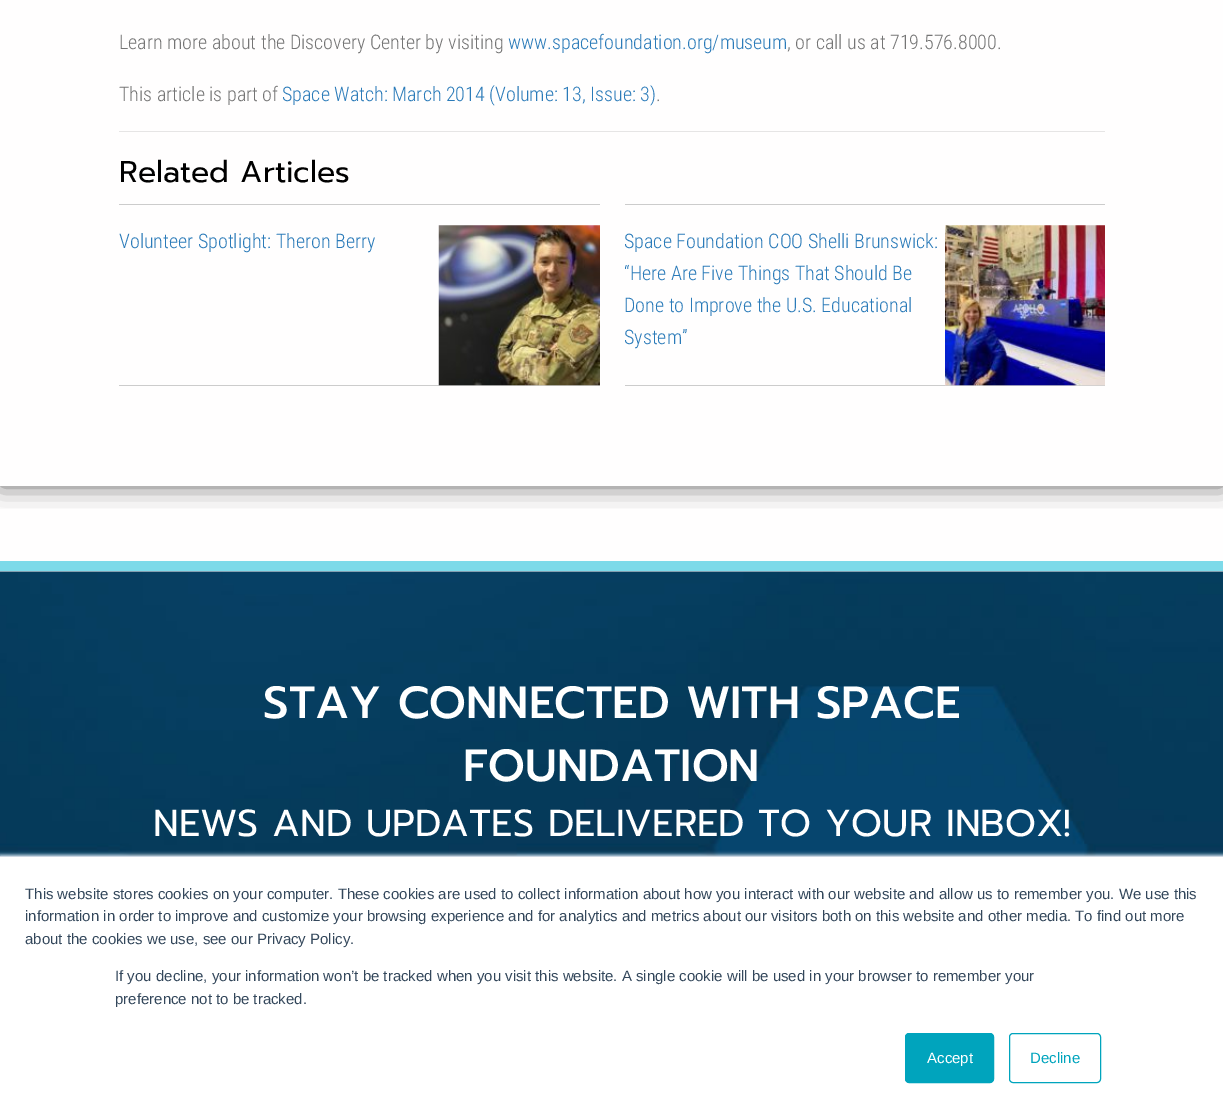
%!PS-Adobe-3.0
%%BoundingBox: 0 0 1223 1115
%%LanguageLevel: 3
%%Pages: 1
%%EndComments
%%BeginProlog
/setalpha { dup .setfillconstantalpha .setstrokeconstantalpha } def
/rrect { 5 dict begin { /r /h /w /y /x } { exch def } forall
  x r add y moveto x w add y 2 copy h add r arct x w add y h add x 1 index r arct
  x y h add x y r arct x y 2 copy exch w add exch r arct closepath end } def
/softshadow { 12 dict begin { /a /b /q /h /w /y /x } { exch def } forall gsave /was 0 def
  9 -2 -9 { dup b mul 4 div /e exch def 1 sub .425 mul 2.718 exch exp 1 add a .99 .min exch div /now exch def
    1 1 now sub 1 was sub div sub setalpha /was now def
    w h .min e 2 mul add 0 gt { x e sub y e sub w e 2 mul add h e 2 mul add
      q e add b .6 mul add w h .min 2 div e add .min 0 .max rrect fill } if } for grestore end } def
/drawimage { 5 dict begin { /h /w /y /x /name } { exch def } forall
  gsave x y translate w h scale
  w h 8 [w 0 0 h 0 0] name (r) file false 3 colorimage grestore end } def
%%EndProlog
%%BeginSetup
<< /PageSize [1223 1115] /PageUsesTransparency true >> setpagedevice
%%EndSetup
%%Page: 1 1
0 .pushpdf14devicefilter
0 1115 translate 1 -1 scale
4 setmiterlimit
1 0.996 0.996 setrgbcolor
0 0 1223 1115 rectfill
gsave
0 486 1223 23 rectclip
0 setgray
0 -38 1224 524 0 12.5 0.6 softshadow
grestore
0.902 0.898 0.898 setrgbcolor
119 131 986 1 rectfill
0.8 setgray
119 204 481 1 rectfill
119 385 481 1 rectfill
(images/1.raw) 438 225 162 161 drawimage
625 204 480 1 rectfill
625 385 480 1 rectfill
(images/2.raw) 945 225 160 161 drawimage
(images/3.raw) 0 571 1223 285 drawimage
0.49 0.855 0.914 setrgbcolor
0 561 1223 10 rectfill
0.918 0.941 0.965 setrgbcolor
0 855 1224 259 0 2 1 softshadow
1 setgray
0 857 1223 258 rectfill
0.796 0.839 0.886 setrgbcolor
0 856 1223 1 rectfill
0 0.643 0.741 setrgbcolor
905.5 1033.5 88 49 3.5 rrect gsave fill grestore
stroke
1009.5 1033.5 91 49 3.5 rrect stroke
/RobotoCondensed-Light [20 0 0 -20 0 0] selectfont
0.459 setgray
119 49 moveto (Learn more about the Discovery Center by visiting) show
0.169 0.482 0.725 setrgbcolor
508 49 moveto (www.spacefoundation.org/museum) show
0.459 setgray
787 49 moveto (, or call us at 719.576.8000.) show
119 101 moveto (This article is part of) show
0.169 0.482 0.725 setrgbcolor
282 101 moveto (Space Watch: March 2014 \(Volume: 13, Issue: 3\)) show
0.459 setgray
656 101 moveto (.) show
/Prompt-Regular [30 0 0 -30 0 0] selectfont
0 setgray
119 182 moveto (Related Articles) show
/RobotoCondensed-Light [20 0 0 -20 0 0] selectfont
0.169 0.482 0.725 setrgbcolor
119 248 moveto (Volunteer Spotlight: Theron Berry) show
624 248 moveto (Space Foundation COO Shelli Brunswick:) show
624 280 moveto (“Here Are Five Things That Should Be) show
624 312 moveto (Done to Improve the U.S. Educational) show
624 344 moveto (System”) show
/Prompt-Medium [45 0 0 -45 0 0] selectfont
1 setgray
263 718 moveto (STAY CONNECTED WITH SPACE) show
463 781 moveto (FOUNDATION) show
/Prompt-Regular [37.5 0 0 -37.5 0 0] selectfont
153 836 moveto (NEWS AND UPDATES DELIVERED TO YOUR INBOX!) show
/LiberationSans-Regular [15 0 0 -15 0 0] selectfont
0.2 0.278 0.357 setrgbcolor
25 899 moveto (This website stores cookies on your computer. These cookies are used to collect information about how you interact with our website and allow us to remember you. We use this) show
25 921 moveto (information in order to improve and customize your browsing experience and for analytics and metrics about our visitors both on this website and other media. To find out more) show
25 944 moveto (about the cookies we use, see our Privacy Policy.) show
115 981 moveto (If you decline, your information won’t be tracked when you visit this website. A single cookie will be used in your browser to remember your) show
115 1004 moveto (preference not to be tracked.) show
1 setgray
927 1063 moveto (Accept) show
0 0.643 0.741 setrgbcolor
1030 1063 moveto (Decline) show
.poppdf14devicefilter showpage
%%EOF
